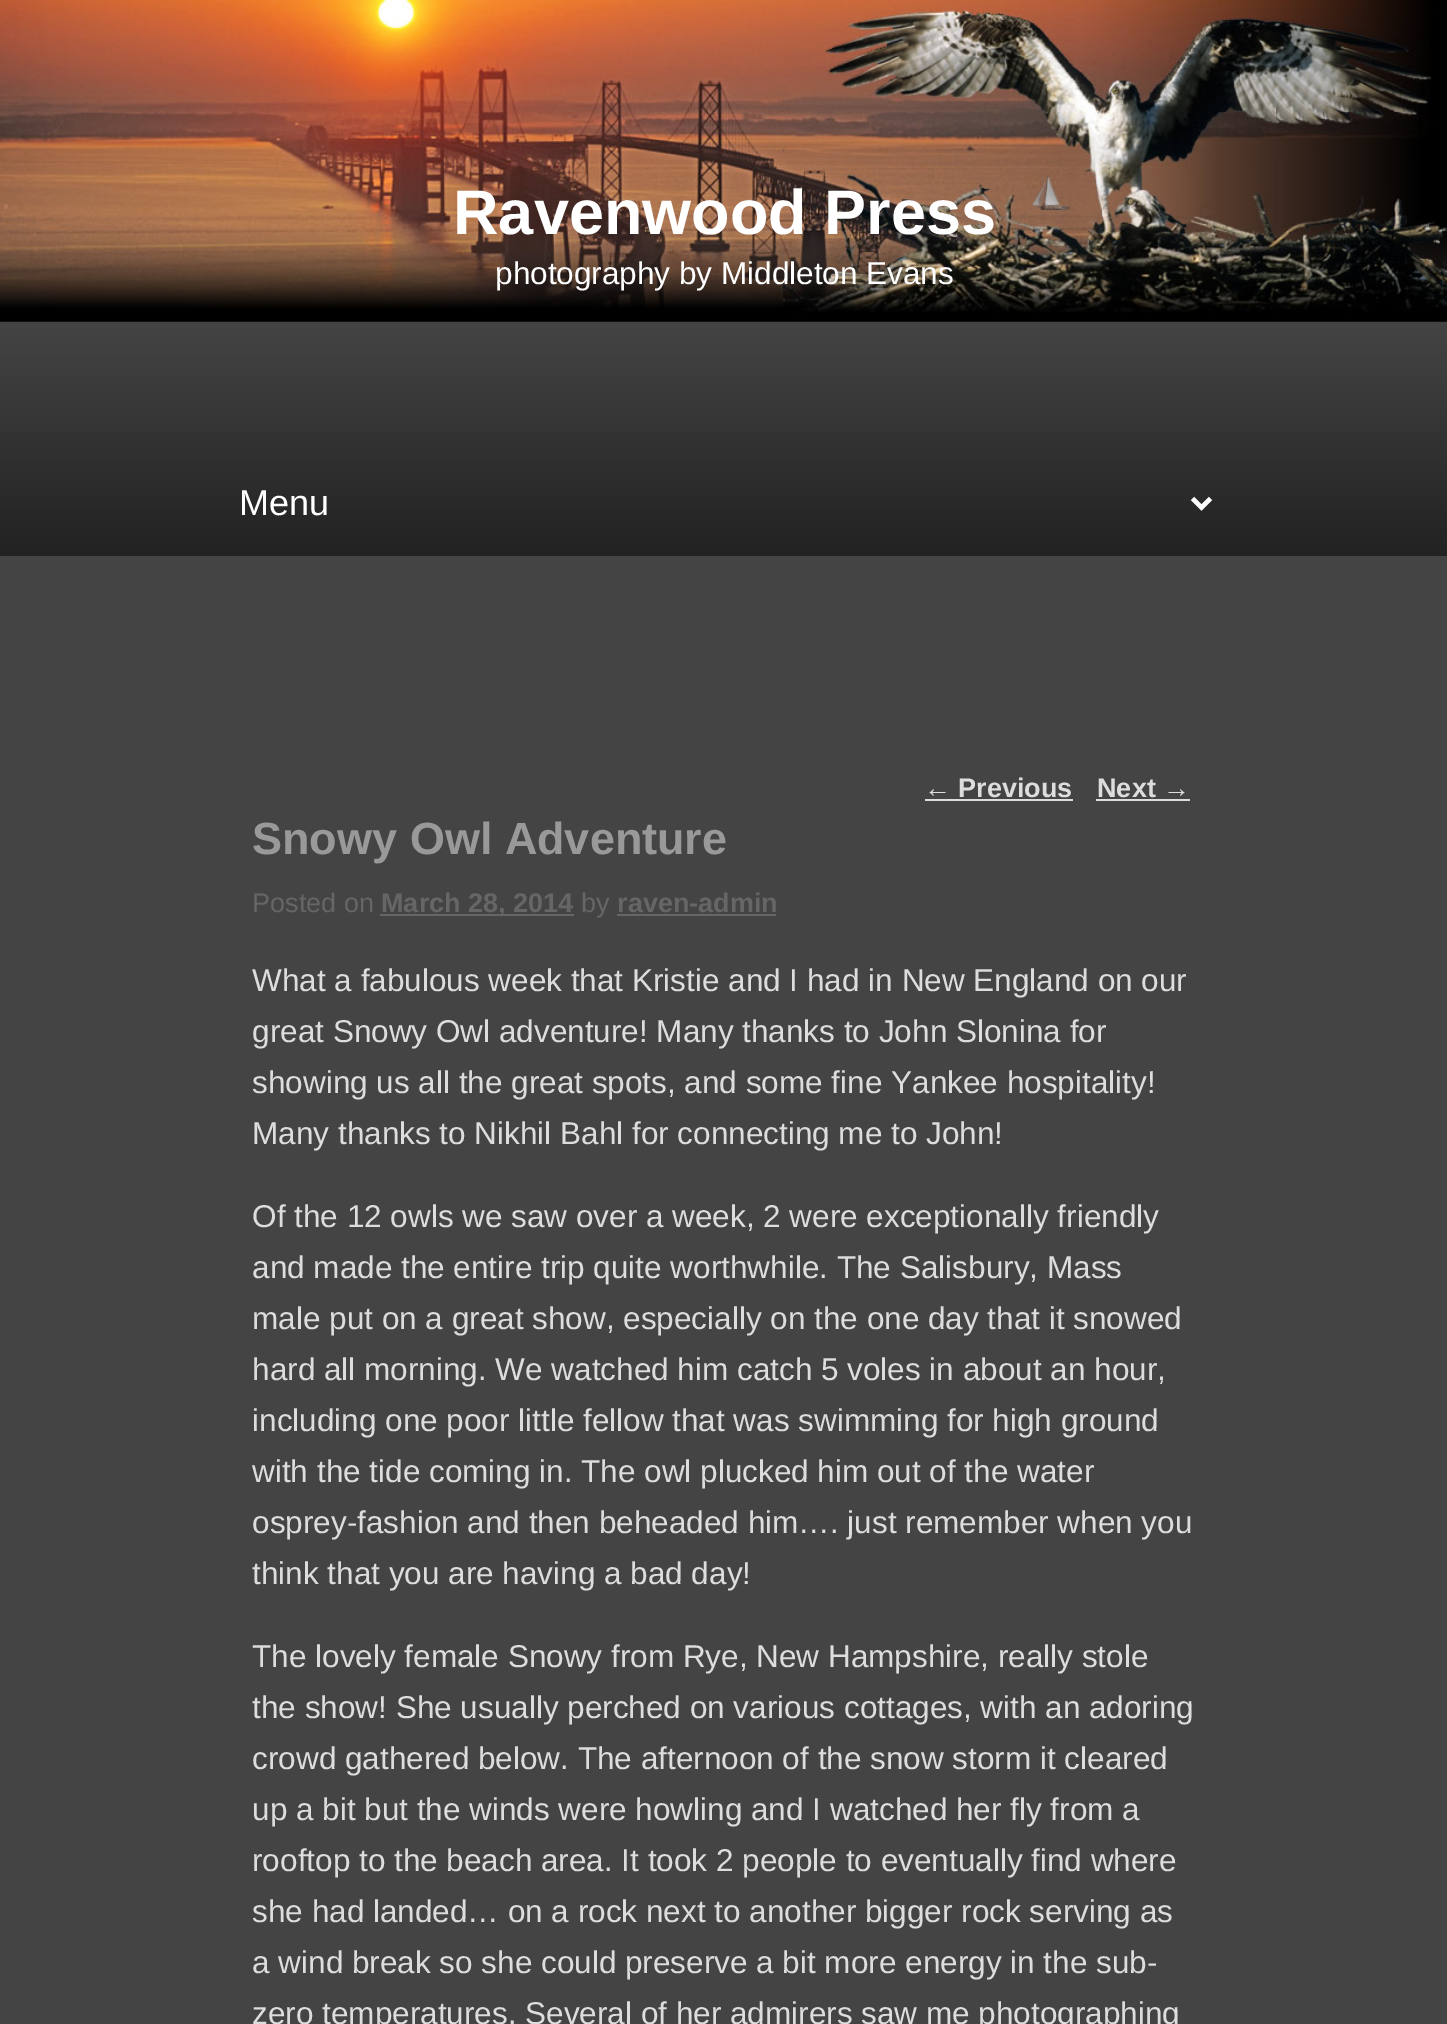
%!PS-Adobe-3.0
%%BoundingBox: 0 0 1447 2024
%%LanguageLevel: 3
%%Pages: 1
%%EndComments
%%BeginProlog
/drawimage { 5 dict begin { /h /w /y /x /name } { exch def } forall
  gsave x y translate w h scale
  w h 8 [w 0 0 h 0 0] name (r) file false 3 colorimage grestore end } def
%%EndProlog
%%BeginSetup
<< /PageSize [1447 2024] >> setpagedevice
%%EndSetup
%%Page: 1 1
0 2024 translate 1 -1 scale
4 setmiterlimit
1 setgray
0 0 1447 2024 rectfill
(images/1.raw) 0 0 1447 322 drawimage
gsave newpath 0 322 moveto 1447 322 lineto 1447 556 lineto 0 556 lineto closepath clip newpath
<< /ShadingType 2 /ColorSpace /DeviceRGB /Coords [725 322 725 556] /Extend [true true] /Function << /FunctionType 2 /Domain [0 1] /C0 [0.267 0.267 0.267] /C1 [0.133 0.133 0.133] /N 1 >> >> shfill grestore
4.5 setlinewidth
newpath 1192.5 498.5 moveto 1201.5 507.5 lineto 1210.5 498.5 lineto stroke
0.267 setgray
0 556 1447 1468 rectfill
0.867 setgray
925 799 148 2 rectfill
1096 799 94 2 rectfill
0.4 setgray
380 914 194 2 rectfill
617 914 159 2 rectfill
/LiberationSans-Bold [63 0 0 -63 0 0] selectfont
1 setgray
453 234 moveto (Ravenwood Press) show
/LiberationSans-Regular [31.5 0 0 -31.5 0 0] selectfont
495 284 moveto (photography by Middleton Evans) show
/LiberationSans-Regular [36 0 0 -36 0 0] selectfont
239 515 moveto (Menu) show
/LiberationSans-Regular [27 0 0 -27 0 0] selectfont
0.867 setgray
924 797 moveto (←) show
/LiberationSans-Bold [27 0 0 -27 0 0] selectfont
958 797 moveto (Previous) show
1097 797 moveto (Next) show
/LiberationSans-Regular [27 0 0 -27 0 0] selectfont
1163 797 moveto (→) show
/LiberationSans-Bold [45 0 0 -45 0 0] selectfont
0.6 setgray
252 854 moveto (Snowy Owl Adventure) show
/LiberationSans-Regular [27 0 0 -27 0 0] selectfont
0.4 setgray
252 912 moveto (Posted on) show
/LiberationSans-Bold [27 0 0 -27 0 0] selectfont
381 912 moveto (March 28, 2014) show
/LiberationSans-Regular [27 0 0 -27 0 0] selectfont
581 912 moveto (by) show
/LiberationSans-Bold [27 0 0 -27 0 0] selectfont
617 912 moveto (raven-admin) show
/LiberationSans-Regular [31.5 0 0 -31.5 0 0] selectfont
0.867 setgray
252 991 moveto (What a fabulous week that Kristie and I had in New England on our) show
252 1042 moveto (great Snowy Owl adventure! Many thanks to John Slonina for) show
252 1093 moveto (showing us all the great spots, and some fine Yankee hospitality!) show
252 1144 moveto (Many thanks to Nikhil Bahl for connecting me to John!) show
252 1227 moveto (Of the 12 owls we saw over a week, 2 were exceptionally friendly) show
252 1278 moveto (and made the entire trip quite worthwhile. The Salisbury, Mass) show
252 1329 moveto (male put on a great show, especially on the one day that it snowed) show
252 1380 moveto (hard all morning. We watched him catch 5 voles in about an hour,) show
252 1431 moveto (including one poor little fellow that was swimming for high ground) show
252 1482 moveto (with the tide coming in. The owl plucked him out of the water) show
252 1533 moveto (osprey-fashion and then beheaded him…. just remember when you) show
252 1584 moveto (think that you are having a bad day!) show
252 1667 moveto (The lovely female Snowy from Rye, New Hampshire, really stole) show
252 1718 moveto (the show! She usually perched on various cottages, with an adoring) show
252 1769 moveto (crowd gathered below. The afternoon of the snow storm it cleared) show
252 1820 moveto (up a bit but the winds were howling and I watched her fly from a) show
252 1871 moveto (rooftop to the beach area. It took 2 people to eventually find where) show
252 1922 moveto (she had landed… on a rock next to another bigger rock serving as) show
252 1973 moveto (a wind break so she could preserve a bit more energy in the sub-) show
252 2024 moveto (zero temperatures. Several of her admirers saw me photographing) show
showpage
%%EOF
